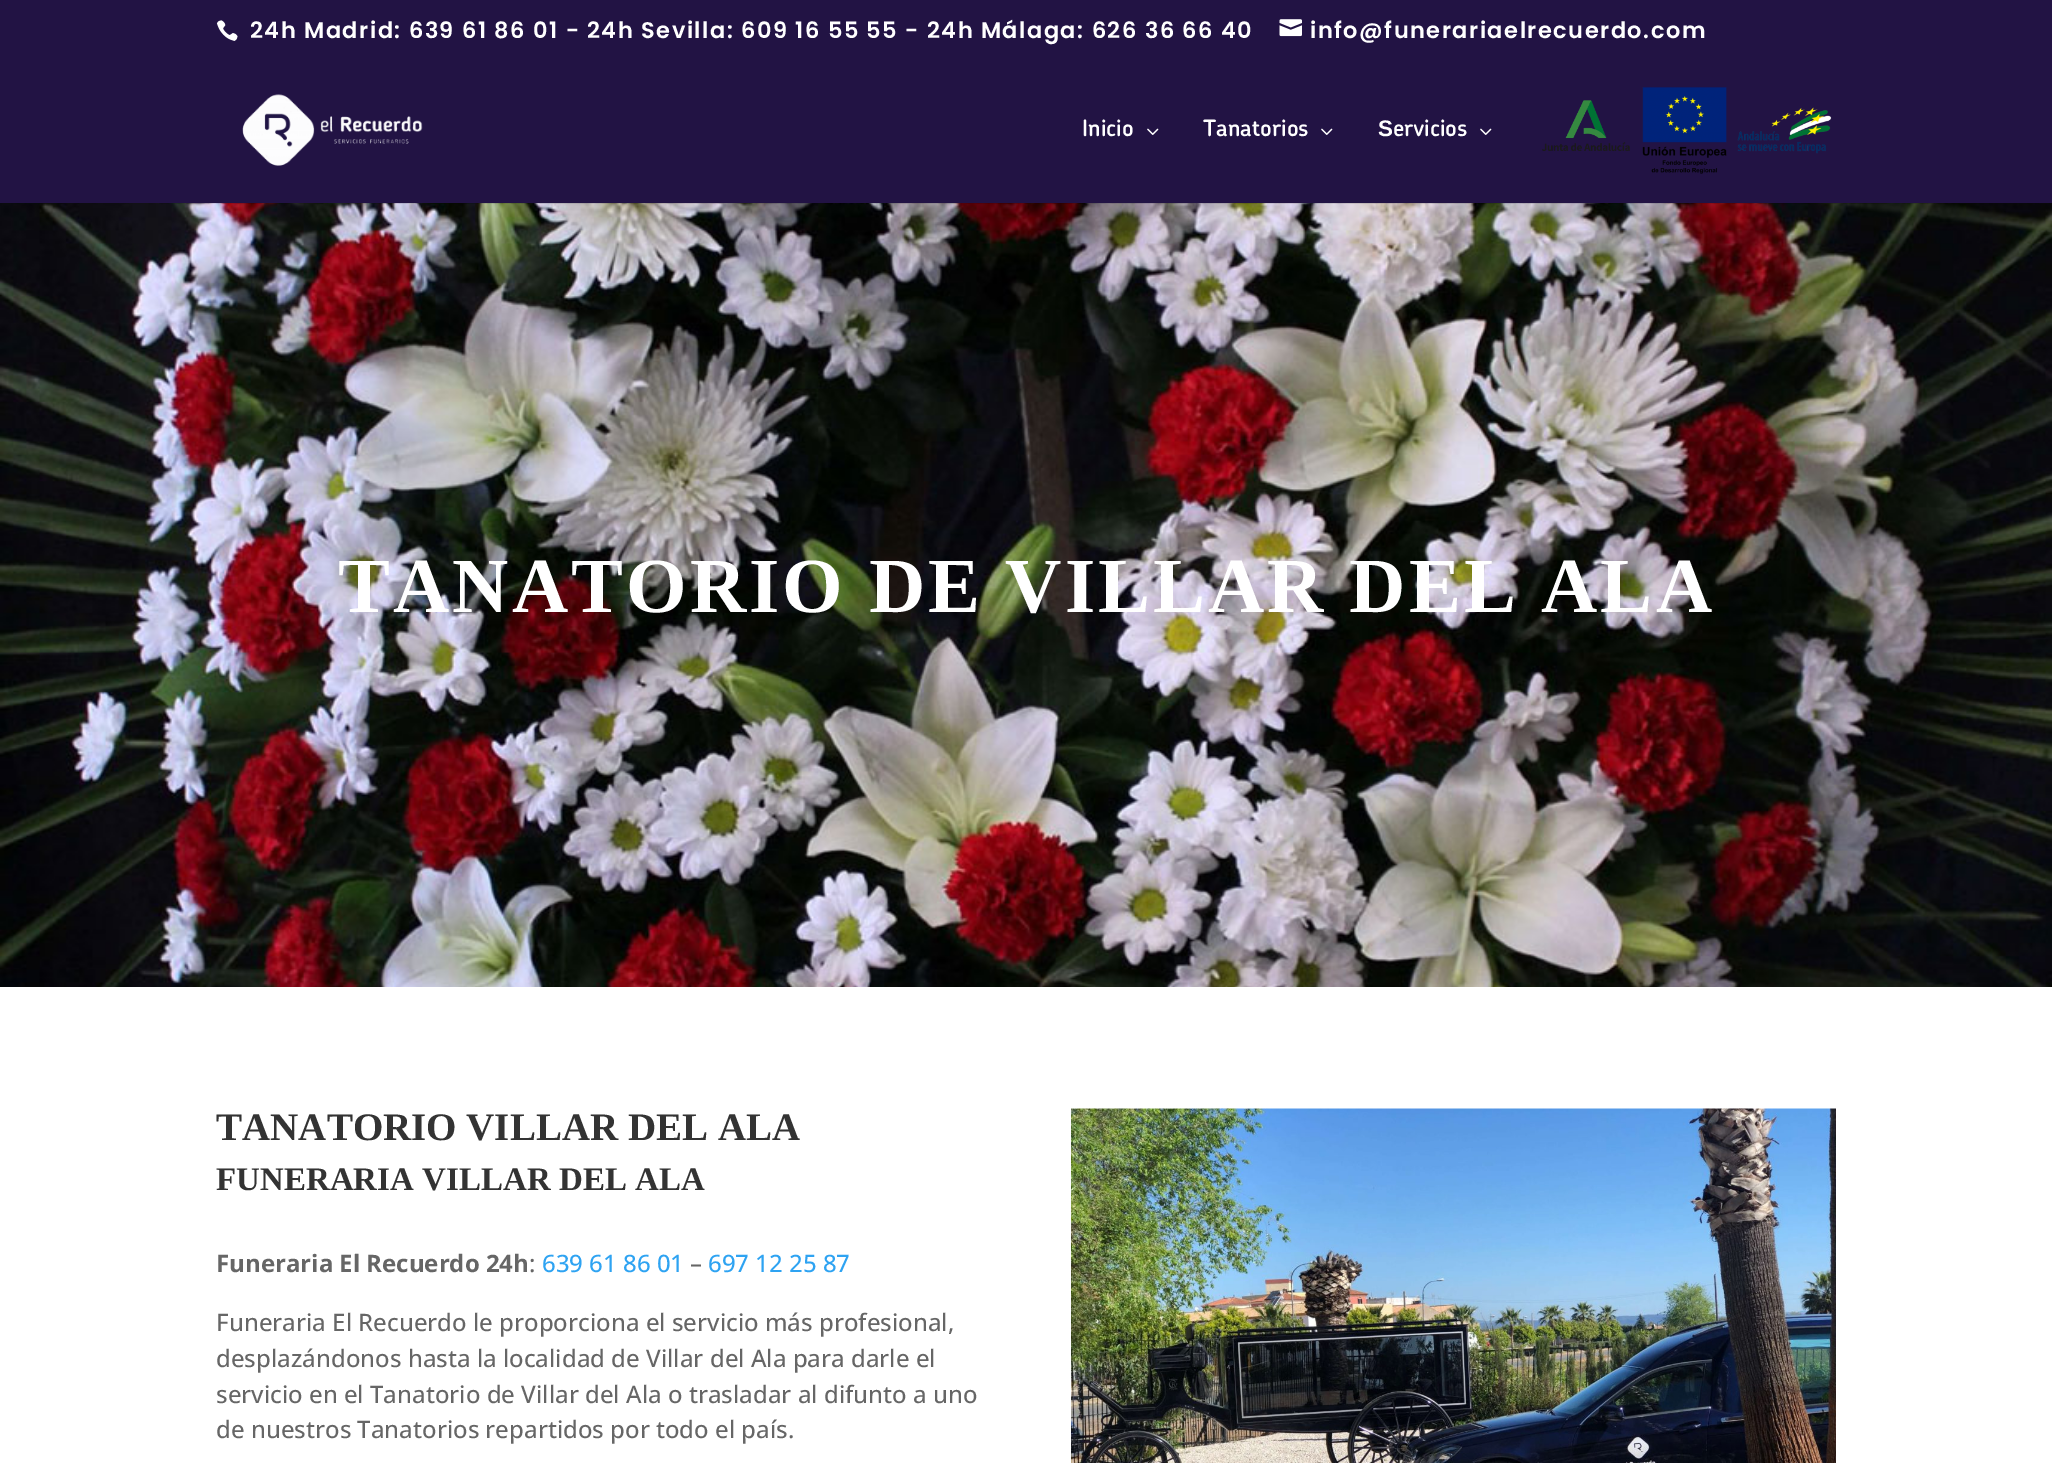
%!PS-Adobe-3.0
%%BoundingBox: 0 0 2052 1463
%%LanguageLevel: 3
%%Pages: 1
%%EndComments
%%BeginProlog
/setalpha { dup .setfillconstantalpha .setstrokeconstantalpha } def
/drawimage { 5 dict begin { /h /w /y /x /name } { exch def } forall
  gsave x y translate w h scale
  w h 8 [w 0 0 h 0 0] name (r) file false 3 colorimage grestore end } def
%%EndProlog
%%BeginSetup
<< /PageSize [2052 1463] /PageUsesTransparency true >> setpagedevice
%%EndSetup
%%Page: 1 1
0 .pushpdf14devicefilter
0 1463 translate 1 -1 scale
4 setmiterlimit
1 setgray
0 0 2052 1463 rectfill
0.133 0.075 0.267 setrgbcolor
0 0 2052 203 rectfill
(images/1.raw) 216 20 22 21 drawimage
(images/2.raw) 1279 19 23 18 drawimage
(images/6.raw) 0 203 2052 784 drawimage
0.1 setalpha
0 setgray
159 203 1776 1 rectfill
1 setalpha
(images/3.raw) 242 94 181 72 drawimage
(images/4.raw) 1147 128 12 7 drawimage
(images/4.raw) 1321 128 12 7 drawimage
(images/4.raw) 1480 128 12 7 drawimage
(images/5.raw) 1542 87 290 87 drawimage
(images/7.raw) 1071 1108 765 355 drawimage
/Poppins-SemiBold [22.5 0 0 -22.5 0 0] selectfont
1 setgray
250 38 moveto 1.5 0 (24h Madrid: 639 61 86 01 - 24h Sevilla: 609 16 55 55 - 24h Málaga: 626 36 66 40) ashow
1310 38 moveto 1.5 0 (info@funerariaelrecuerdo.com) ashow
/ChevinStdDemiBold-SemiBold [22.5 0 0 -22.5 0 0] selectfont
1082 136 moveto (Inicio) show
1203 136 moveto (Tanatorios) show
/LiberationSans-Bold [22.5 0 0 -22.5 0 0] selectfont
1378 136 moveto (S) show
/ChevinStdDemiBold-SemiBold [22.5 0 0 -22.5 0 0] selectfont
1393 136 moveto (ervicios) show
/LiberationSerif-Bold [78 0 0 -78 0 0] selectfont
338 612 moveto 3 0 (TANATORIO DE VILLAR DEL ALA) ashow
/LiberationSerif-Bold [39 0 0 -39 0 0] selectfont
0.2 setgray
216 1140 moveto (TANATORIO VILLAR DEL ALA) show
/LiberationSerif-Bold [33 0 0 -33 0 0] selectfont
216 1190 moveto (FUNERARIA VILLAR DEL ALA) show
/OpenSans-Bold [24 0 0 -24 0 0] selectfont
0.4 setgray
216 1272 moveto (Funeraria El Recuerdo 24h) show
/OpenSans-Medium [24 0 0 -24 0 0] selectfont
529 1272 moveto (:) show
0.18 0.639 0.949 setrgbcolor
542 1272 moveto (639 61 86 01) show
0.4 setgray
690 1272 moveto (–) show
0.18 0.639 0.949 setrgbcolor
708 1272 moveto (697 12 25 87) show
0.4 setgray
216 1331 moveto (Funeraria El Recuerdo le proporciona el servicio más profesional,) show
216 1367 moveto (desplazándonos hasta la localidad de Villar del Ala para darle el) show
216 1403 moveto (servicio en el Tanatorio de Villar del Ala o trasladar al difunto a uno) show
216 1438 moveto (de nuestros Tanatorios repartidos por todo el país.) show
.poppdf14devicefilter showpage
%%EOF
